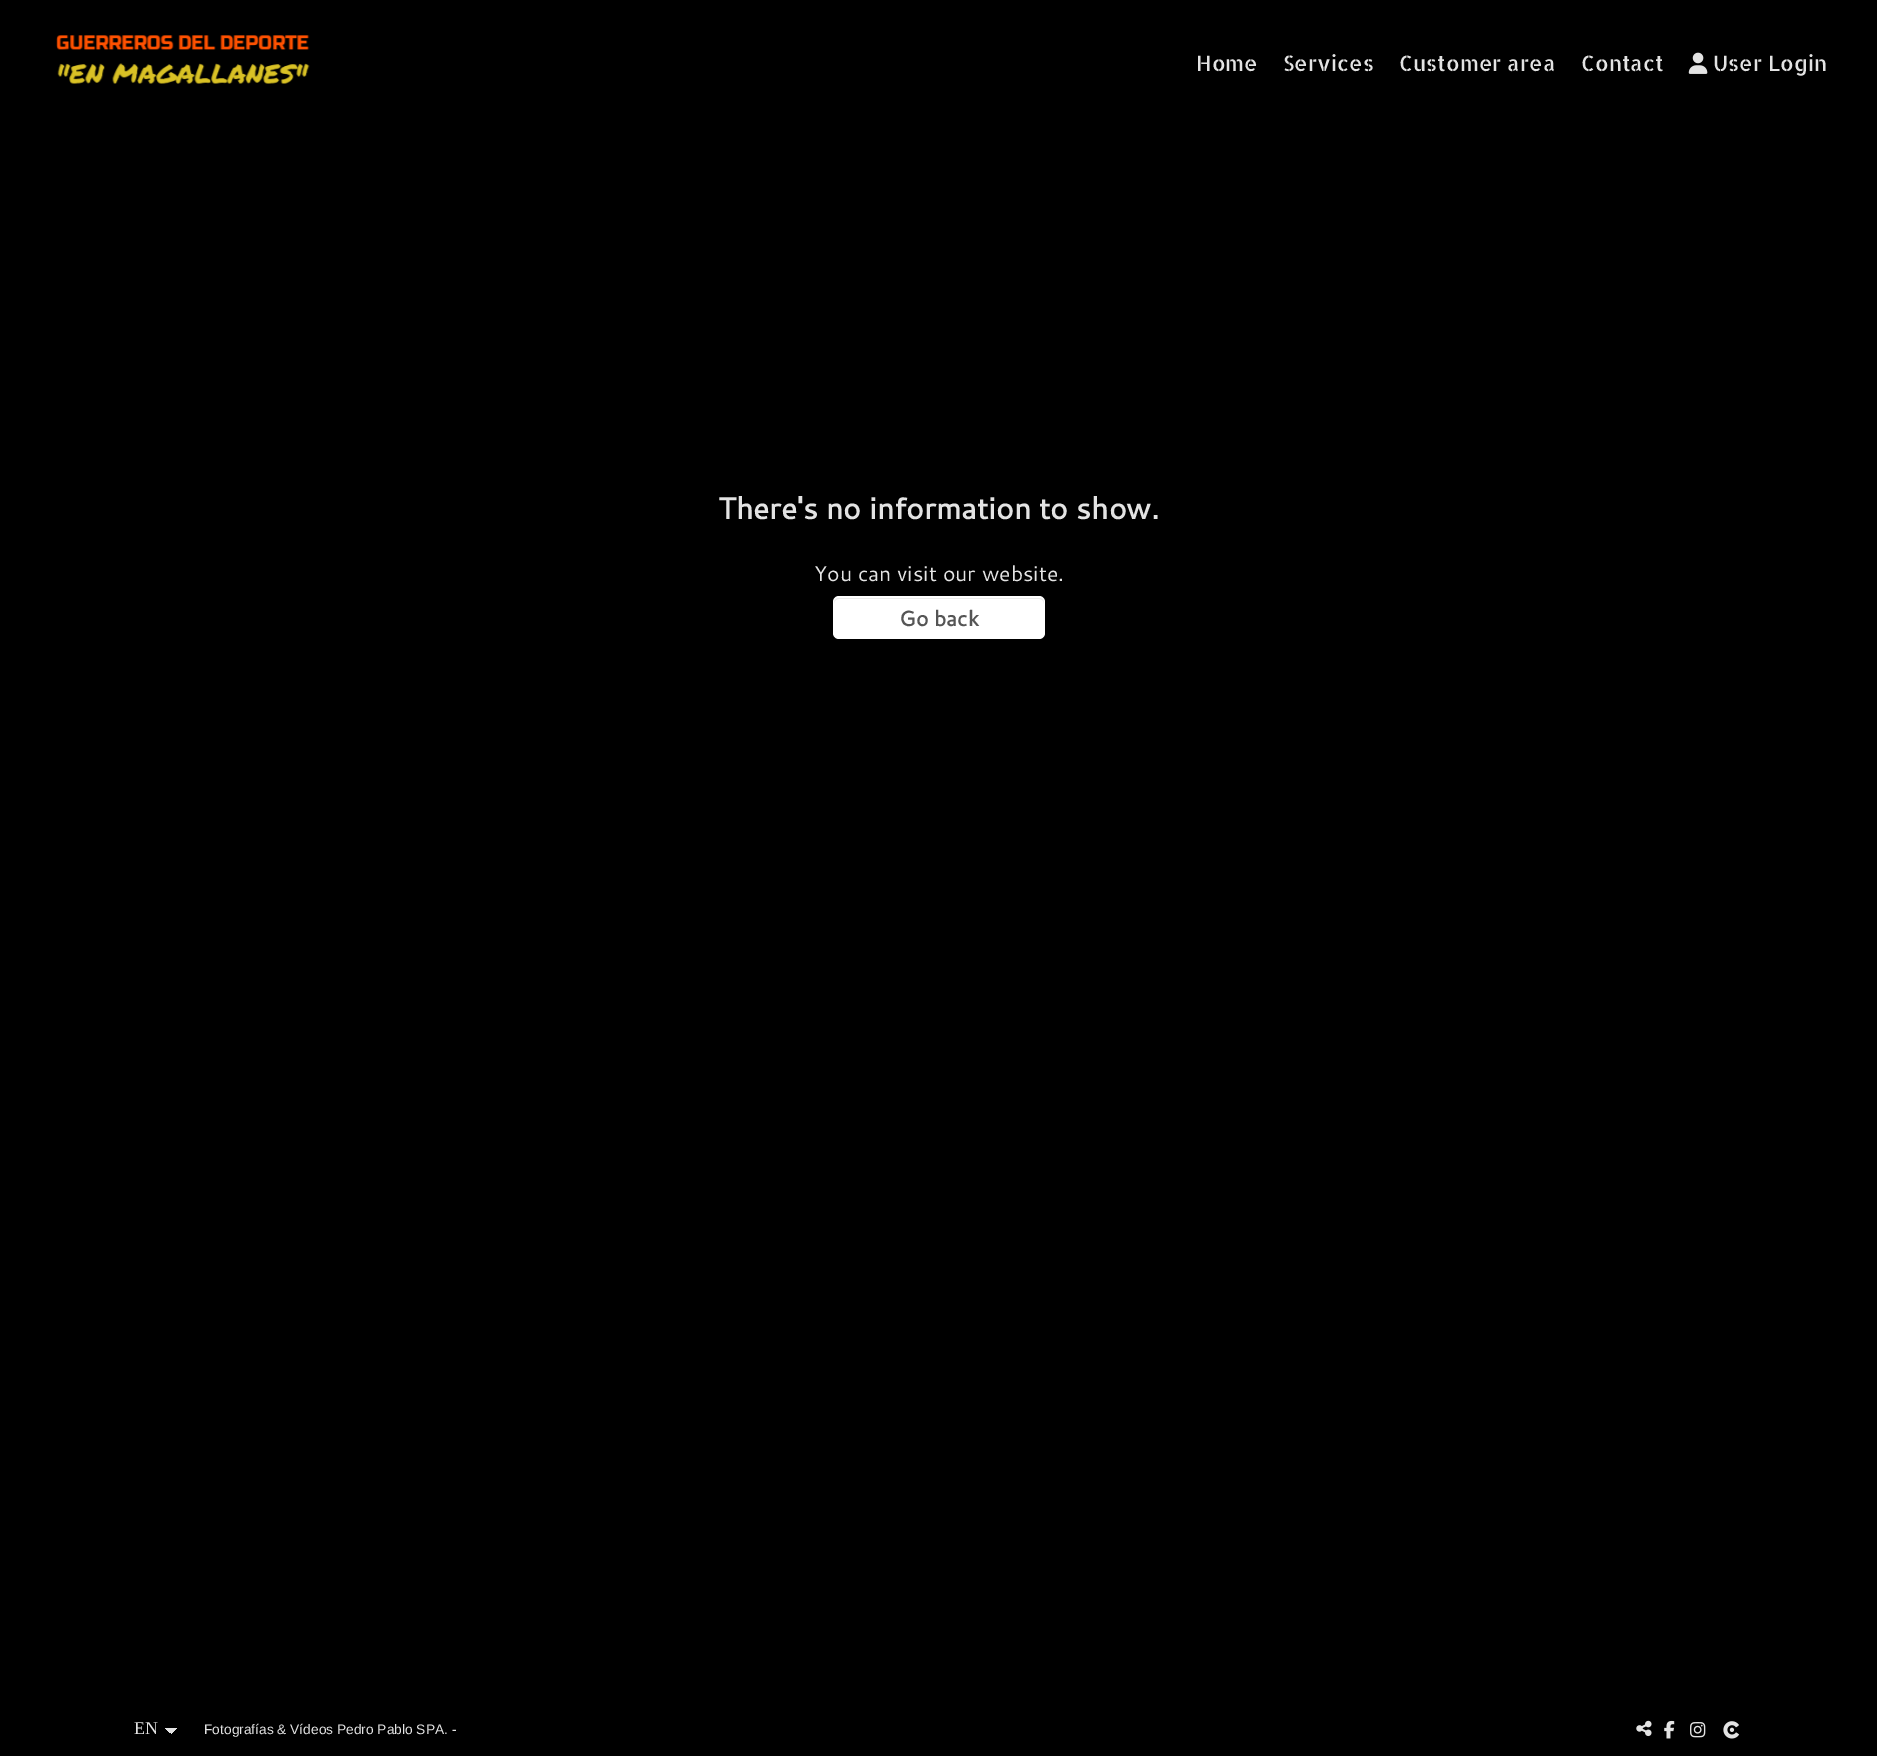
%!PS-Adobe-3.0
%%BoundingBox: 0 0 1877 1756
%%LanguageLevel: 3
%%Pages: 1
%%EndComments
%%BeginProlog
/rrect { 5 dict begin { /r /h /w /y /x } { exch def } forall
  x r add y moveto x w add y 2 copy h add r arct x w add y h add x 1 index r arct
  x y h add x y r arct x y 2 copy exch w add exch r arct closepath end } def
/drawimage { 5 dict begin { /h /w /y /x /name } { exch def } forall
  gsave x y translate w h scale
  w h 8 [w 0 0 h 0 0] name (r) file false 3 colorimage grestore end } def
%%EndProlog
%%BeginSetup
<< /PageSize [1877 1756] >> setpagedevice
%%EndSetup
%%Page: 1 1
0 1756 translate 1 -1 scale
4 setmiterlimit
0 setgray
0 0 1877 1756 rectfill
(images/1.raw) 56 35 254 49 drawimage
(images/2.raw) 1688 52 20 22 drawimage
1 setgray
833 596 212 43 6 rrect fill
0.925 setgray
newpath 839 599 moveto 1039 599 lineto 1042 599 1044 601 1044 604 curveto 1044 603 lineto 1044 600 1042 598 1039 598 curveto 839 598 lineto 836 598 834 600 834 603 curveto 834 604 lineto 834 601 836 599 839 599 curveto closepath fill
gsave newpath 171 1728 moveto 178 1728 lineto 178 1734 lineto 171 1734 lineto closepath clip newpath
<< /ShadingType 2 /ColorSpace /DeviceRGB /Coords [171 1728 178 1734] /Extend [true true] /Function << /FunctionType 3 /Domain [0 1] /Functions [<< /FunctionType 2 /Domain [0 1] /C0 [0.89 0.89 0.89] /C1 [0.89 0.89 0.89] /N 1 >> << /FunctionType 2 /Domain [0 1] /C0 [0 0 0] /C1 [0 0 0] /N 1 >>] /Bounds [0.5] /Encode [0 1 0 1] >> >> shfill grestore
gsave newpath 165 1728 moveto 171 1728 lineto 171 1733 lineto 165 1733 lineto closepath clip newpath
<< /ShadingType 2 /ColorSpace /DeviceRGB /Coords [165 1734 171 1728] /Extend [true true] /Function << /FunctionType 3 /Domain [0 1] /Functions [<< /FunctionType 2 /Domain [0 1] /C0 [0 0 0] /C1 [0 0 0] /N 1 >> << /FunctionType 2 /Domain [0 1] /C0 [0.89 0.89 0.89] /C1 [0.89 0.89 0.89] /N 1 >>] /Bounds [0.5] /Encode [0 1 0 1] >> >> shfill grestore
(images/3.raw) 1636 1720 16 17 drawimage
(images/4.raw) 1664 1720 11 19 drawimage
(images/5.raw) 1690 1722 16 16 drawimage
(images/6.raw) 1723 1721 17 18 drawimage
/AllertaStencil-Regular [21.25 0 0 -21.25 0 0] selectfont
0.89 setgray
1196 71 moveto (Home) show
1283 71 moveto (Services) show
1399 71 moveto (Customer area) show
1581 71 moveto (Contact) show
1713 71 moveto (User Login) show
/Cantarell-Bold [30 0 0 -30 0 0] selectfont
718 519 moveto (There's no information to show.) show
/Cantarell-Regular [21.25 0 0 -21.25 0 0] selectfont
814 581 moveto (You can visit our website.) show
/Cantarell-Bold [21.25 0 0 -21.25 0 0] selectfont
0.333 setgray
899 626 moveto (Go back) show
/LiberationSerif-Regular [18 0 0 -18 0 0] selectfont
0.89 setgray
134 1734 moveto (EN) show
/LiberationSans-Regular [13.75 0 0 -13.75 0 0] selectfont
204 1734 moveto (Fotografías & Vídeos Pedro Pablo SPA. -) show
showpage
%%EOF
